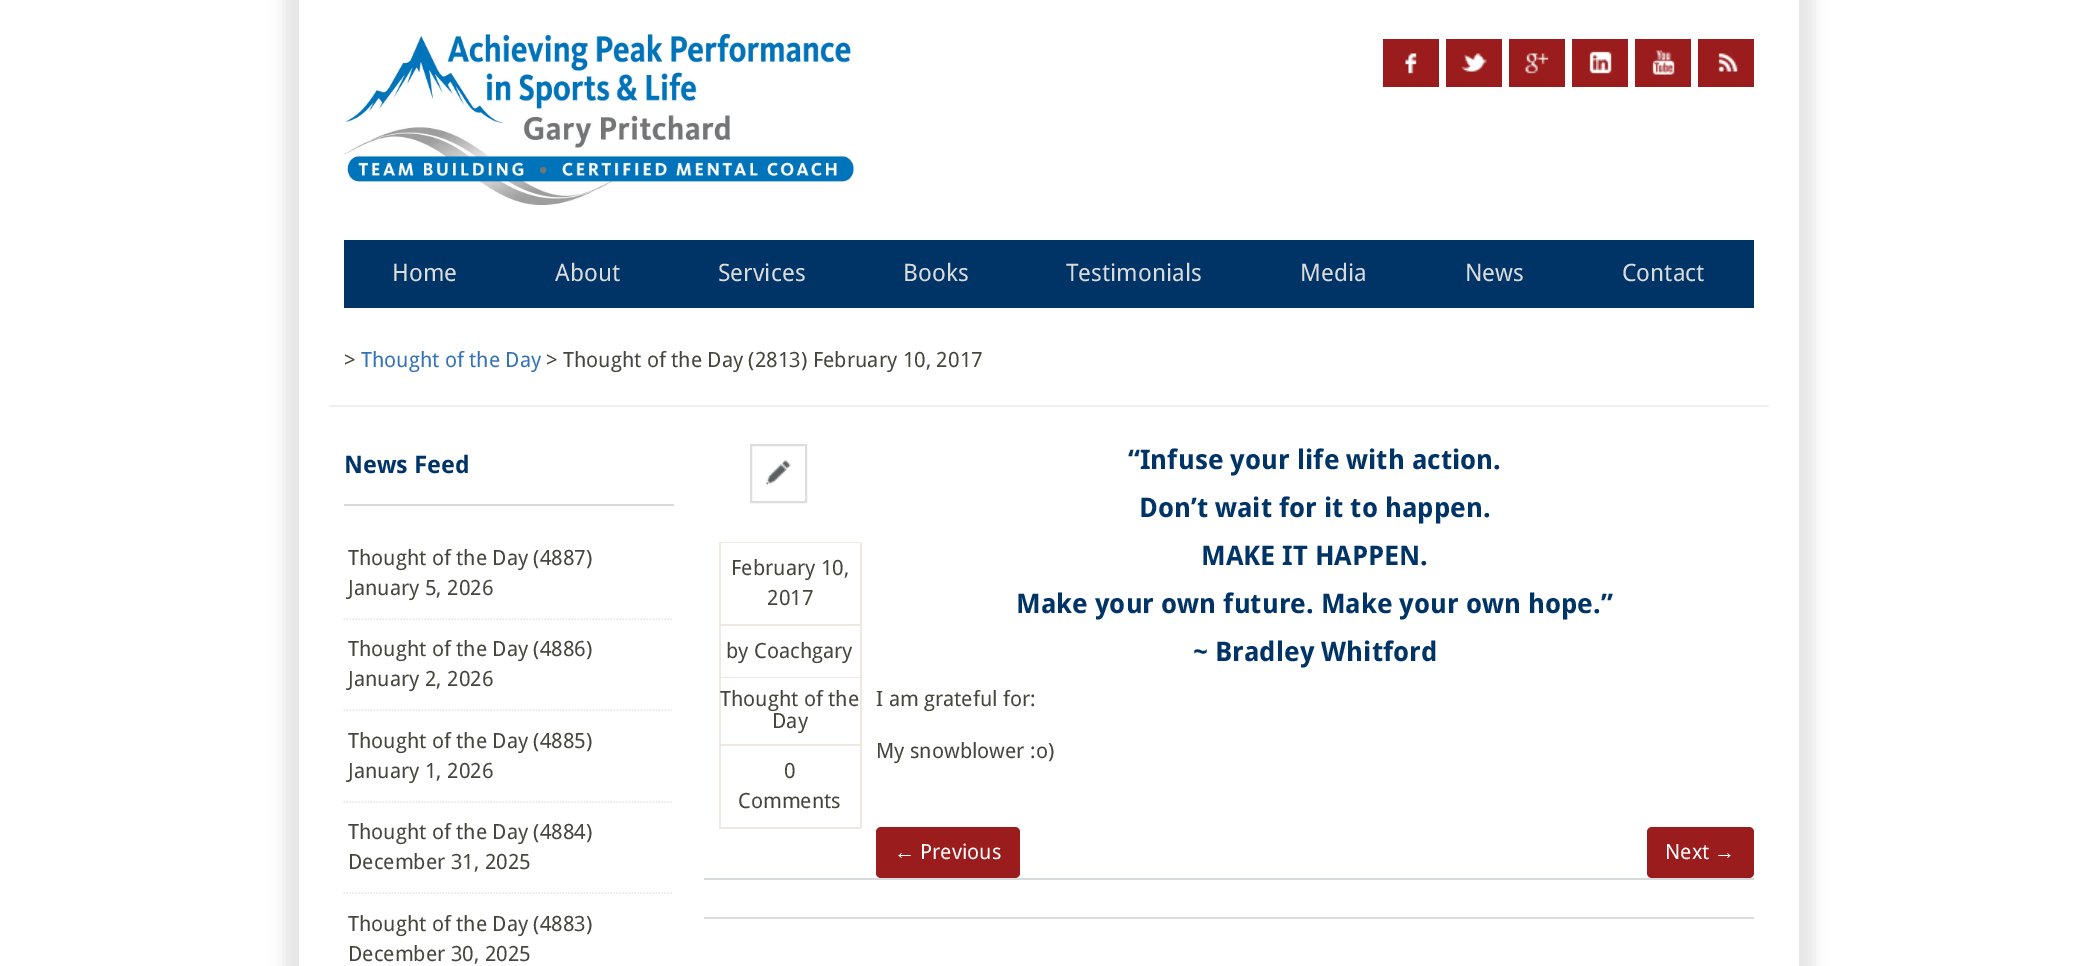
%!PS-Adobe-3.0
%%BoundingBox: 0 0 2097 966
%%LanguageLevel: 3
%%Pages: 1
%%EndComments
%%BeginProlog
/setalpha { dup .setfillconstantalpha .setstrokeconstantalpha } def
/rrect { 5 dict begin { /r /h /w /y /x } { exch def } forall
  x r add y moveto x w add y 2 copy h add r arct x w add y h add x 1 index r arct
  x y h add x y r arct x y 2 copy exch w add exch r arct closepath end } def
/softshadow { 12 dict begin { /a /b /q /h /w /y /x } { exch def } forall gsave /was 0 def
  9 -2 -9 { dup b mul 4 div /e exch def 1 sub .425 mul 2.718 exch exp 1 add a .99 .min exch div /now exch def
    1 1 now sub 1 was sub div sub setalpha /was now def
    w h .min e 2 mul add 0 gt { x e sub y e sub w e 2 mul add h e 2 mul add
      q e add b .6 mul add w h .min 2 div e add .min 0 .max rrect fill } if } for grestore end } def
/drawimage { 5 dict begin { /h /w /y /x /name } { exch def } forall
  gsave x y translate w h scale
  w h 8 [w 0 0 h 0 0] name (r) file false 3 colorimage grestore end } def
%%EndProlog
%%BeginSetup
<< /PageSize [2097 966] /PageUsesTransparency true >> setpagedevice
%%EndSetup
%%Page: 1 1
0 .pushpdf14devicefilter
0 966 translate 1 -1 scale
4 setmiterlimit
1 setgray
0 0 2097 966 rectfill
0 setgray
284 -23 1530 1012 0 7.5 0.1 softshadow
1 setgray
299 0 1500 966 rectfill
(images/1.raw) 343 34 511 171 drawimage
0.604 0.11 0.11 setrgbcolor
1383 39 56 48 rectfill
(images/2.raw) 1405 53 12 21 drawimage
1446 39 56 48 rectfill
(images/3.raw) 1461 53 26 19 drawimage
1509 39 56 48 rectfill
(images/4.raw) 1525 53 24 21 drawimage
1572 39 56 48 rectfill
(images/5.raw) 1589 51 23 23 drawimage
1635 39 56 48 rectfill
(images/6.raw) 1652 50 23 25 drawimage
1698 39 56 48 rectfill
(images/7.raw) 1718 53 20 19 drawimage
0 0.2 0.4 setrgbcolor
344 240 1410 68 rectfill
0.937 setgray
329 405 1440 2 rectfill
0.843 0.855 0.863 setrgbcolor
344 504 330 2 rectfill
0.902 setgray
1.5 setlinewidth
[1.5 1.5] 0 setdash
newpath 343.5 619 moveto 673.5 619 lineto stroke
newpath 343.5 710 moveto 673.5 710 lineto stroke
newpath 343.5 802 moveto 673.5 802 lineto stroke
newpath 343.5 893 moveto 673.5 893 lineto stroke
0.843 0.855 0.863 setrgbcolor
704 878 1050 2 rectfill
(images/8.raw) 766 459 25 27 drawimage
0.867 setgray
2 setlinewidth
[] 0 setdash
751 445 55 57 rectstroke
0.929 0.914 0.886 setrgbcolor
719 542 142 1 rectfill
860 543 2 285 rectfill
719 624 142 2 rectfill
719 543 2 83 rectfill
719 677 142 1 rectfill
719 626 2 52 rectfill
719 744 142 2 rectfill
719 678 2 68 rectfill
719 827 142 2 rectfill
719 746 2 82 rectfill
0.604 0.11 0.11 setrgbcolor
876 827 144 51 5 rrect fill
1647 827 107 51 5 rrect fill
0.867 setgray
704 917 1050 2 rectfill
/DroidSans-Regular [24 0 0 -24 0 0] selectfont
0.859 setgray
392 281 moveto (Home) show
555 281 moveto (About) show
718 281 moveto (Services) show
903 281 moveto (Books) show
1066 281 moveto (Testimonials) show
1300 281 moveto (Media) show
1465 281 moveto (News) show
1622 281 moveto (Contact) show
/DroidSans-Regular [21 0 0 -21 0 0] selectfont
0.275 0.275 0.243 setrgbcolor
344 367 moveto (>) show
0.212 0.451 0.714 setrgbcolor
361 367 moveto (Thought of the Day) show
0.275 0.275 0.243 setrgbcolor
546 367 moveto (> Thought of the Day \(2813\) February 10, 2017) show
/DroidSans-Bold [24 0 0 -24 0 0] selectfont
0 0.2 0.4 setrgbcolor
344 473 moveto (News Feed) show
/DroidSans-Regular [21 0 0 -21 0 0] selectfont
0.275 0.275 0.243 setrgbcolor
348 565 moveto (Thought of the Day \(4887\)) show
348 595 moveto (January 5, 2026) show
348 656 moveto (Thought of the Day \(4886\)) show
348 686 moveto (January 2, 2026) show
348 748 moveto (Thought of the Day \(4885\)) show
348 778 moveto (January 1, 2026) show
348 839 moveto (Thought of the Day \(4884\)) show
348 869 moveto (December 31, 2025) show
348 931 moveto (Thought of the Day \(4883\)) show
348 961 moveto (December 30, 2025) show
731 575 moveto (February 10,) show
767 605 moveto (2017) show
726 658 moveto (by Coachgary) show
720 706 moveto (Thought of the) show
772 728 moveto (Day) show
784 778 moveto (0) show
738 808 moveto (Comments) show
/DroidSans-Bold [27 0 0 -27 0 0] selectfont
0 0.2 0.4 setrgbcolor
1128 469 moveto (“Infuse your life with action.) show
1139 517 moveto (Don’t wait for it to happen.) show
1201 565 moveto (MAKE IT HAPPEN.) show
1016 613 moveto (Make your own future. Make your own hope.”) show
1193 661 moveto (~ Bradley Whitford) show
/DroidSans-Regular [21 0 0 -21 0 0] selectfont
0.275 0.275 0.243 setrgbcolor
876 706 moveto (I am grateful for:) show
876 758 moveto (My snowblower :o\)) show
/LiberationSans-Regular [21 0 0 -21 0 0] selectfont
1 setgray
894 859 moveto (←) show
/DroidSans-Regular [21 0 0 -21 0 0] selectfont
920 859 moveto (Previous) show
1665 859 moveto (Next) show
/LiberationSans-Regular [21 0 0 -21 0 0] selectfont
1714 859 moveto (→) show
.poppdf14devicefilter showpage
%%EOF
